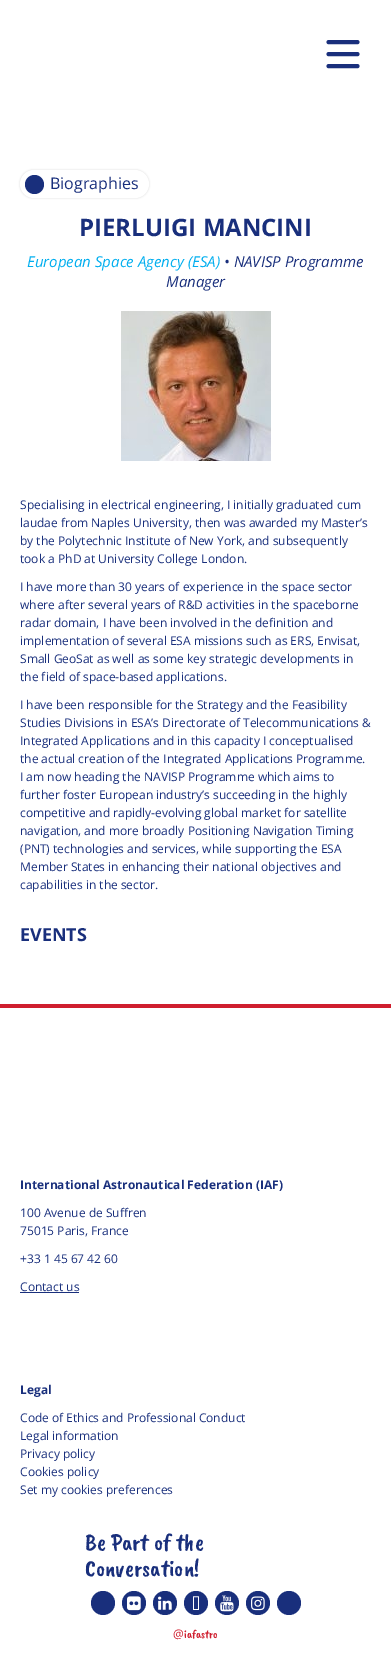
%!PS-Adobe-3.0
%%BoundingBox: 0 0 391 1664
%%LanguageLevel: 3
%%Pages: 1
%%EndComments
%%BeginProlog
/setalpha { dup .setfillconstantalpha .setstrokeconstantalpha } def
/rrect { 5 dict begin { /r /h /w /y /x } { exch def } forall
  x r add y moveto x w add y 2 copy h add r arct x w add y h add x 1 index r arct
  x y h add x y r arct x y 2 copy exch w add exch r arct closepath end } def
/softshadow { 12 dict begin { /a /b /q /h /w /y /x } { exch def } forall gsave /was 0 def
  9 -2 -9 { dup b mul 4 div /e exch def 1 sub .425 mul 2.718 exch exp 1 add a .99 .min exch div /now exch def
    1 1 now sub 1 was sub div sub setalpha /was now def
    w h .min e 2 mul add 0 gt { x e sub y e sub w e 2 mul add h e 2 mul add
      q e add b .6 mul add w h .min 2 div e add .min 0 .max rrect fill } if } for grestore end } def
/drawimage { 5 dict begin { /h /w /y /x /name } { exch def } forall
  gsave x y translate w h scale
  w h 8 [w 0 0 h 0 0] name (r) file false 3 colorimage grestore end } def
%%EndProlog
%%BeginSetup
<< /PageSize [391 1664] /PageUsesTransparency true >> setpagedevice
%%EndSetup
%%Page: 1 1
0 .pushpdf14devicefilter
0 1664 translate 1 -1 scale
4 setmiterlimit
1 setgray
0 0 391 1664 rectfill
0.098 0.184 0.486 setrgbcolor
4 setlinewidth
1 setlinecap
newpath 328.5 42 moveto 357.5 42 lineto 328.5 54 moveto 357.5 54 lineto 328.5 66 moveto 357.5 66 lineto stroke
0 setgray
20 170 129 28 14 1 0.16 softshadow
1 setgray
20 170 129 28 14 rrect fill
0.098 0.184 0.486 setrgbcolor
newpath 34.5 184.5 9.5 0 360 arc closepath fill
(images/1.raw) 121 311 150 150 drawimage
0.812 0.118 0.18 setrgbcolor
0 1004 391 4 rectfill
0.098 0.184 0.486 setrgbcolor
20 1292 59 1 rectfill
newpath 103 1603 12 0 360 arc closepath fill
newpath 134 1603 12 0 360 arc closepath fill
(images/2.raw) 127 1596 14 15 drawimage
newpath 165 1603 12 0 360 arc closepath fill
(images/3.raw) 158 1596 14 14 drawimage
newpath 196 1603 12 0 360 arc closepath fill
(images/4.raw) 193 1596 6 14 drawimage
newpath 227 1603 12 0 360 arc closepath fill
(images/5.raw) 220 1595 14 17 drawimage
newpath 258 1603 12 0 360 arc closepath fill
(images/6.raw) 251 1596 14 15 drawimage
newpath 289 1603 12 0 360 arc closepath fill
/OpenSans-Regular [16 0 0 -16 0 0] selectfont
50 189 moveto (Biographies) show
/OpenSans-Bold [24 0 0 -24 0 0] selectfont
79 236 moveto (PIERLUIGI MANCINI) show
/OpenSans-Italic [15 0 0 -15 0 0] selectfont
0 0.682 0.937 setrgbcolor
27 267 moveto (European Space Agency \(ESA\)) show
0.098 0.184 0.486 setrgbcolor
224 267 moveto (• NAVISP Programme) show
166 287 moveto (Manager) show
/OpenSans-Regular [12 0 0 -12 0 0] selectfont
20 509 moveto (Specialising in electrical engineering, I initially graduated cum) show
20 527 moveto (laudae from Naples University, then was awarded my Master’s) show
20 545 moveto (by the Polytechnic Institute of New York, and subsequently) show
20 563 moveto (took a PhD at University College London.) show
20 591 moveto (I have more than 30 years of experience in the space sector) show
20 609 moveto (where after several years of R&D activities in the spaceborne) show
20 627 moveto (radar domain, I have been involved in the definition and) show
20 645 moveto (implementation of several ESA missions such as ERS, Envisat,) show
20 663 moveto (Small GeoSat as well as some key strategic developments in) show
20 681 moveto (the field of space-based applications.) show
20 709 moveto (I have been responsible for the Strategy and the Feasibility) show
20 727 moveto (Studies Divisions in ESA’s Directorate of Telecommunications &) show
20 745 moveto (Integrated Applications and in this capacity I conceptualised) show
20 763 moveto (the actual creation of the Integrated Applications Programme.) show
20 781 moveto (I am now heading the NAVISP Programme which aims to) show
20 799 moveto (further foster European industry’s succeeding in the highly) show
20 817 moveto (competitive and rapidly-evolving global market for satellite) show
20 835 moveto (navigation, and more broadly Positioning Navigation Timing) show
20 853 moveto (\(PNT\) technologies and services, while supporting the ESA) show
20 871 moveto (Member States in enhancing their national objectives and) show
20 889 moveto (capabilities in the sector.) show
/OpenSans-Bold [18 0 0 -18 0 0] selectfont
20 941 moveto (EVENTS) show
/OpenSans-Bold [12 0 0 -12 0 0] selectfont
20 1189 moveto (International Astronautical Federation \(IAF\)) show
/OpenSans-Regular [12 0 0 -12 0 0] selectfont
20 1217 moveto (100 Avenue de Suffren) show
20 1235 moveto (75015 Paris, France) show
20 1263 moveto (+33 1 45 67 42 60) show
20 1291 moveto (Contact us) show
/OpenSans-Bold [12 0 0 -12 0 0] selectfont
20 1394 moveto (Legal) show
/OpenSans-Regular [12 0 0 -12 0 0] selectfont
20 1422 moveto (Code of Ethics and Professional Conduct) show
20 1440 moveto (Legal information) show
20 1458 moveto (Privacy policy) show
20 1476 moveto (Cookies policy) show
20 1494 moveto (Set my cookies preferences) show
/CaveatBrush-Regular [24 0 0 -24 0 0] selectfont
85 1550 moveto (Be Part of the) show
85 1576 moveto (Conversation!) show
/OpenSans-Regular [12 0 0 -12 0 0] selectfont
0.812 0.118 0.18 setrgbcolor
173 1638 moveto (@) show
/CaveatBrush-Regular [12 0 0 -12 0 0] selectfont
184 1638 moveto (iafastro) show
.poppdf14devicefilter showpage
%%EOF
